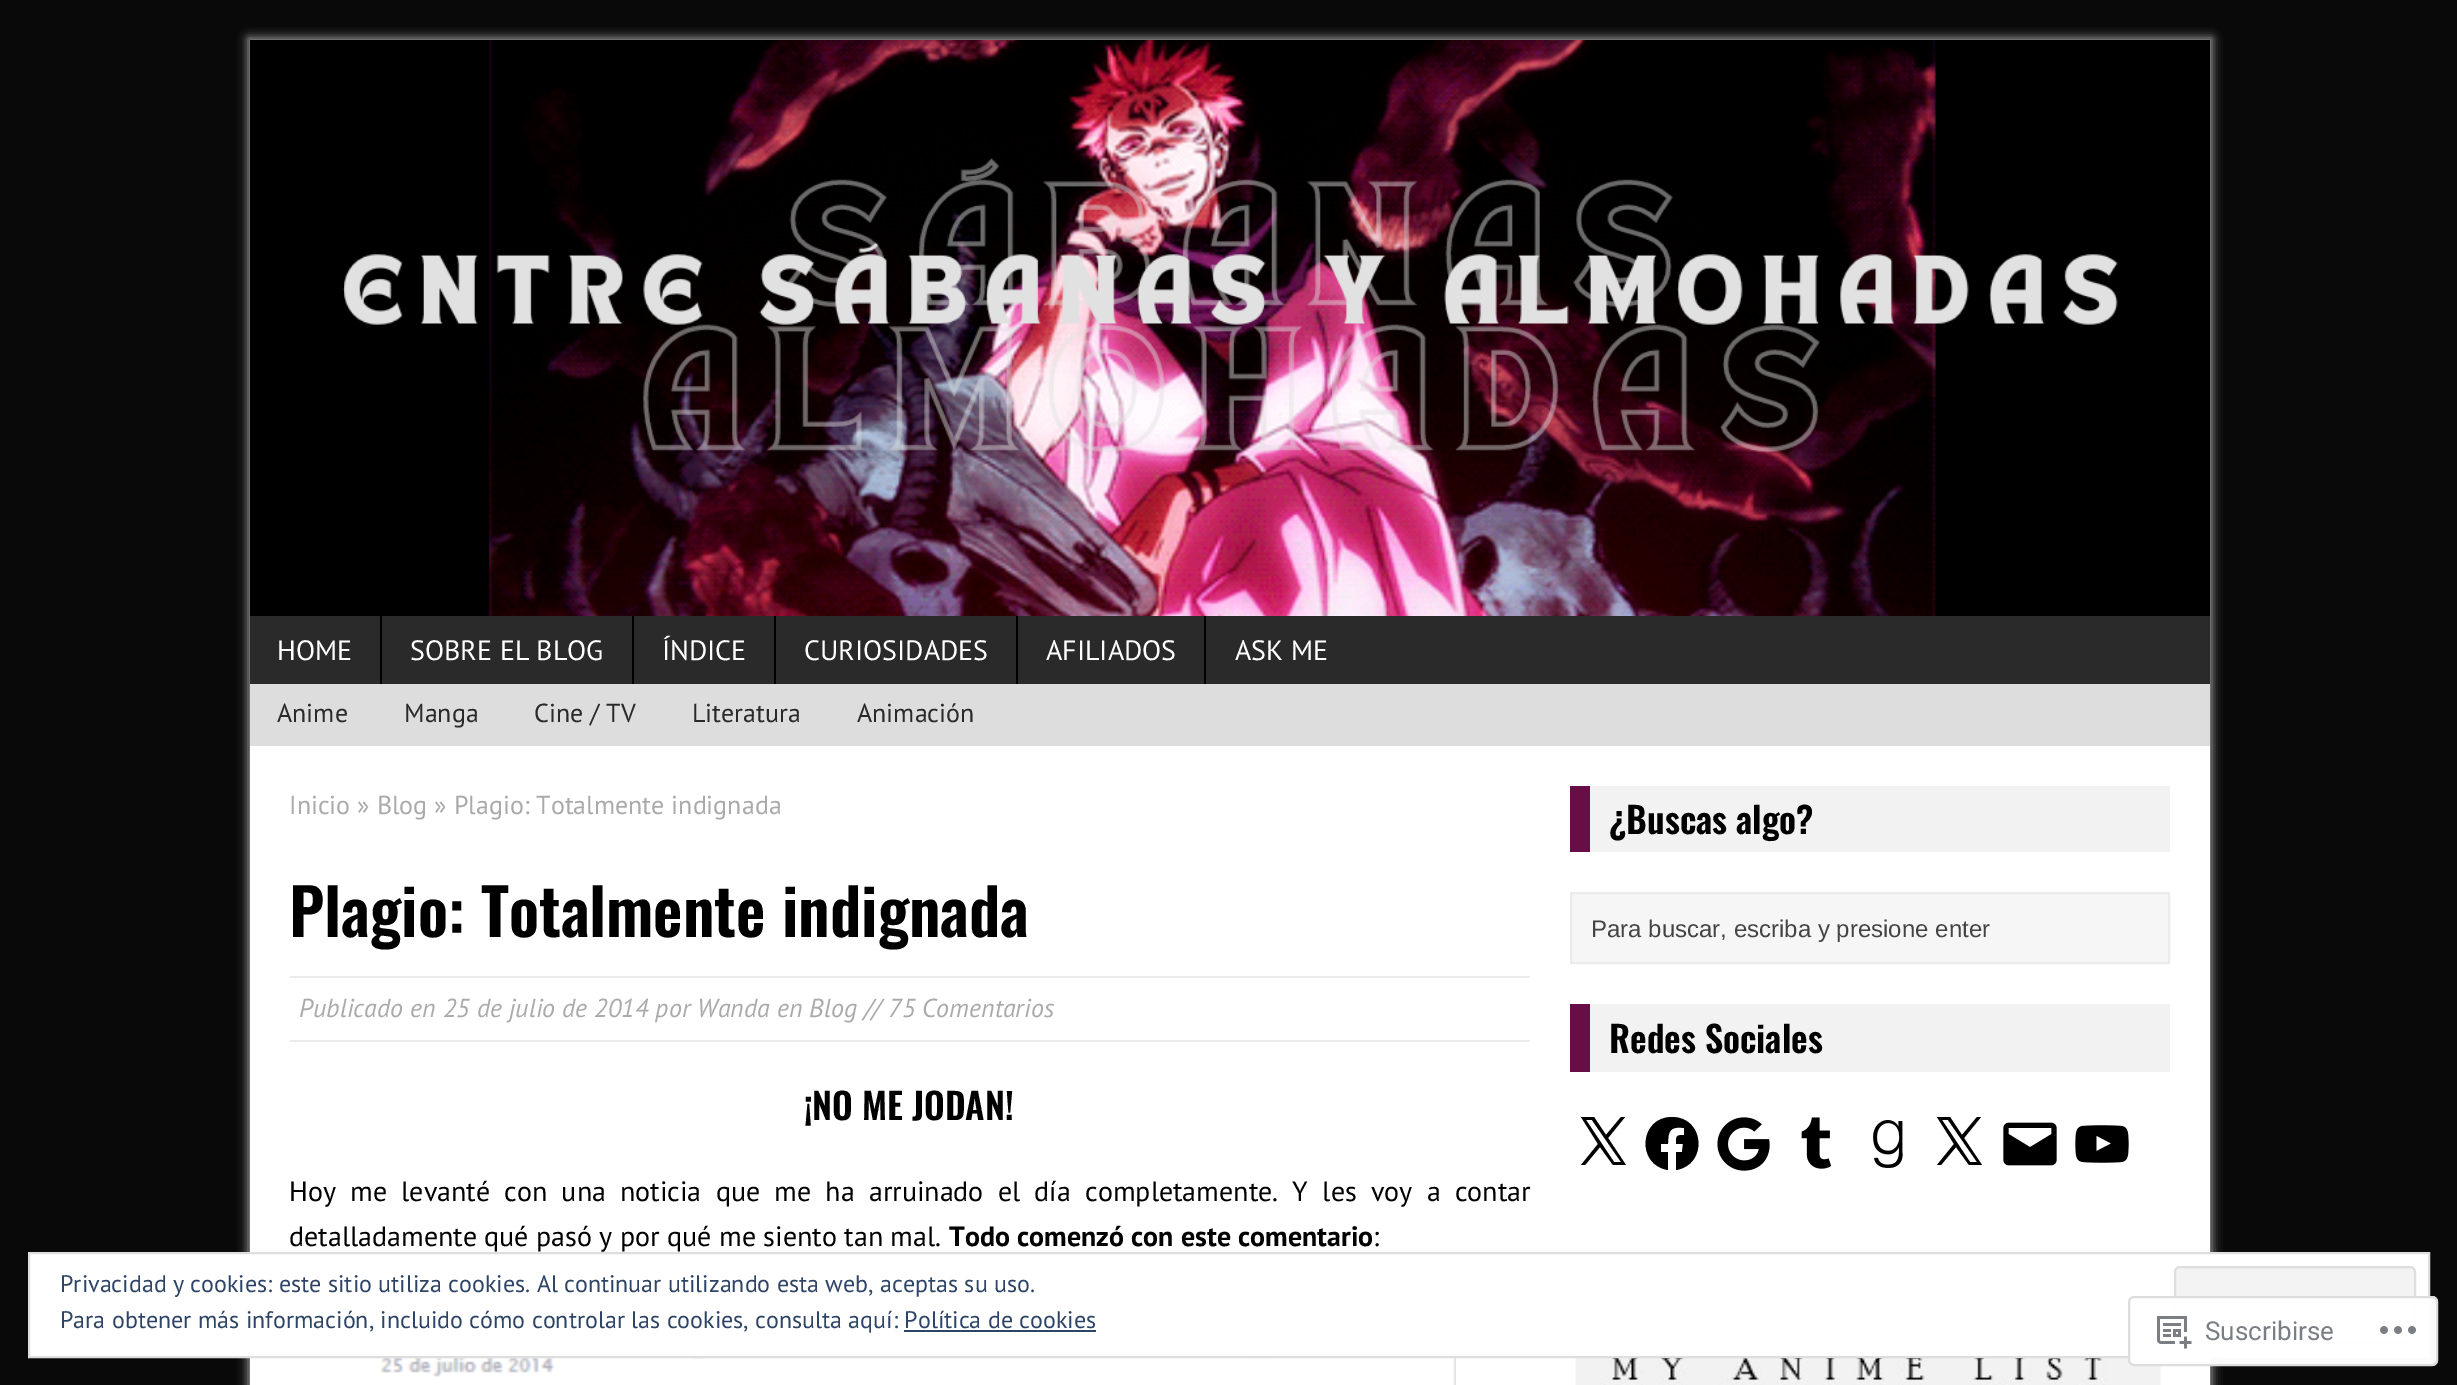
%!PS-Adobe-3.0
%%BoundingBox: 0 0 2457 1385
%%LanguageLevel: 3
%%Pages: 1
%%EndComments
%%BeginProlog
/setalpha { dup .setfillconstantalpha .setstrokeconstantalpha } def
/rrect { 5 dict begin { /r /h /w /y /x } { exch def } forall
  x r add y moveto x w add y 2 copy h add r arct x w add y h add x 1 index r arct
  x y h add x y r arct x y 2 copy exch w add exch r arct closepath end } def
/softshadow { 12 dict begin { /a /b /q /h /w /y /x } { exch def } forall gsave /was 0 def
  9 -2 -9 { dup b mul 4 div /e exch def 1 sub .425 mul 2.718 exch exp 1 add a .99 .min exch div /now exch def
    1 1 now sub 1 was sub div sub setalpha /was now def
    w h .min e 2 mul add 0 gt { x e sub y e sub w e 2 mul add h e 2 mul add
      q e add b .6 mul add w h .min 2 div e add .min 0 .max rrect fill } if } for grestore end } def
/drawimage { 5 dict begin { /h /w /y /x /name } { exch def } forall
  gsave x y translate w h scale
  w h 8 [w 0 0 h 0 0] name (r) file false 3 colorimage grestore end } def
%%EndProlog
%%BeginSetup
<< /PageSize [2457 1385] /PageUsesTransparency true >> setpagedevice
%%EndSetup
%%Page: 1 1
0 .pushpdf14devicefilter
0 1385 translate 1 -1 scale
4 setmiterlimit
0.035 setgray
0 0 2457 1385 rectfill
0.659 setgray
248 38 1964 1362 0 5 1 softshadow
(images/1.raw) 250 40 1960 576 drawimage
0.165 setgray
250 616 1960 68 rectfill
0 setgray
380 616 2 68 rectfill
632 616 2 68 rectfill
774 616 2 68 rectfill
1016 616 2 68 rectfill
1204 616 2 68 rectfill
0.867 setgray
250 684 1960 62 rectfill
1 setgray
250 746 1960 639 rectfill
0.922 setgray
290 976 1240 2 rectfill
290 1040 1240 2 rectfill
(images/2.raw) 379 1358 1077 27 drawimage
0.949 setgray
1590 786 580 66 rectfill
0.404 0.055 0.275 setrgbcolor
1570 786 20 66 rectfill
0.965 setgray
newpath 1571 893 moveto 2169 893 lineto 2169 963 lineto 1571 963 lineto closepath gsave fill grestore
0.922 setgray
2 setlinewidth
stroke
0.949 setgray
1590 1004 580 68 rectfill
0.404 0.055 0.275 setrgbcolor
1570 1004 20 68 rectfill
0 setgray
newpath 1608 1138 moveto 1625 1117 lineto 1621 1117 lineto 1606 1135 lineto 1594 1117 lineto 1581 1117 lineto 1598 1144 lineto 1581 1165 lineto 1585 1165 lineto 1600 1147 lineto 1613 1165 lineto 1626 1165 lineto closepath 1602 1144 moveto 1586 1120 lineto 1592 1120 lineto 1621 1162 lineto 1614 1162 lineto closepath fill
newpath 1672 1117 moveto 1639 1117 1636 1165 1668 1170 curveto 1668 1152 lineto 1661 1152 lineto 1661 1144 lineto 1668 1144 lineto 1668 1131 1670 1126 1684 1128 curveto 1684 1135 lineto 1676 1135 1676 1136 1676 1144 curveto 1683 1144 lineto 1682 1152 lineto 1676 1152 lineto 1676 1170 lineto 1708 1165 1705 1117 1672 1117 curveto closepath fill
(images/3.raw) 1717 1117 53 54 drawimage
(images/4.raw) 1801 1117 31 52 drawimage
(images/5.raw) 1873 1120 30 48 drawimage
newpath 1964 1138 moveto 1981 1117 lineto 1977 1117 lineto 1962 1135 lineto 1950 1117 lineto 1937 1117 lineto 1954 1144 lineto 1937 1165 lineto 1941 1165 lineto 1956 1147 lineto 1969 1165 lineto 1982 1165 lineto closepath 1958 1144 moveto 1942 1120 lineto 1948 1120 lineto 1977 1162 lineto 1970 1162 lineto closepath fill
(images/6.raw) 2003 1122 54 44 drawimage
(images/7.raw) 2075 1125 54 38 drawimage
(images/8.raw) 1575 1358 586 27 drawimage
1 setgray
newpath 29 1253 moveto 2429 1253 lineto 2429 1357 lineto 29 1357 lineto closepath gsave fill grestore
0.871 setgray
stroke
0.953 setgray
2175 1267 240 76 5 rrect gsave fill grestore
0.871 setgray
stroke
0.18 0.267 0.404 setrgbcolor
904 1330 192 2 rectfill
0.98 setalpha
1 setgray
2128 1296 310 70 6 rrect fill
0.863 0.863 0.871 setrgbcolor
2129 1297 308 68 5 rrect stroke
1 setalpha
(images/9.raw) 2157 1316 35 33 drawimage
(images/10.raw) 2380 1326 36 8 drawimage
/PTSans-Regular [28 0 0 -28 0 0] selectfont
1 setgray
277 660 moveto (HOME) show
410 660 moveto (SOBRE EL BLOG) show
662 660 moveto (ÍNDICE) show
804 660 moveto (CURIOSIDADES) show
1046 660 moveto (AFILIADOS) show
1235 660 moveto (ASK ME) show
/PTSans-Regular [26 0 0 -26 0 0] selectfont
0.165 setgray
277 722 moveto (Anime) show
404 722 moveto (Manga) show
534 722 moveto (Cine / TV) show
692 722 moveto (Literatura) show
857 722 moveto (Animación) show
0.667 setgray
289 814 moveto (Inicio » Blog » Plagio: Totalmente indignada) show
/Oswald-SemiBold [64 0 0 -64 0 0] selectfont
0 setgray
289 937 moveto (Plagio: Totalmente indignada) show
/PTSans-Italic [26 0 0 -26 0 0] selectfont
0.667 setgray
299 1017 moveto (Publicado en 25 de julio de 2014 por Wanda en Blog // 75 Comentarios) show
/Oswald-SemiBold [36 0 0 -36 0 0] selectfont
0 setgray
804 1120 moveto (¡NO ME JODAN!) show
/PTSans-Regular [28 0 0 -28 0 0] selectfont
289 1201 moveto 6.75 0 32 (Hoy me levanté con una noticia que me ha arruinado el día completamente. Y les voy a contar) widthshow
289 1246 moveto (detalladamente qué pasó y por qué me siento tan mal.) show
/PTSans-Bold [28 0 0 -28 0 0] selectfont
949 1246 moveto (Todo comenzó con este comentario) show
/PTSans-Regular [28 0 0 -28 0 0] selectfont
1373 1246 moveto (:) show
/Oswald-SemiBold [36 0 0 -36 0 0] selectfont
1609 834 moveto (¿Buscas algo?) show
/LiberationSans-Regular [24 0 0 -24 0 0] selectfont
0.267 setgray
1591 937 moveto (Para buscar, escriba y presione enter) show
/Oswald-SemiBold [36 0 0 -36 0 0] selectfont
0 setgray
1609 1053 moveto (Redes Sociales) show
/PTSans-Regular [24 0 0 -24 0 0] selectfont
0.18 0.267 0.404 setrgbcolor
60 1292 moveto (Privacidad y cookies: este sitio utiliza cookies. Al continuar utilizando esta web, aceptas su uso.) show
60 1328 moveto (Para obtener más información, incluido cómo controlar las cookies, consulta aquí: Política de cookies) show
/Roboto-Regular [26 0 0 -26 0 0] selectfont
0.478 0.494 0.518 setrgbcolor
2205 1340 moveto (Suscribirse) show
.poppdf14devicefilter showpage
%%EOF
